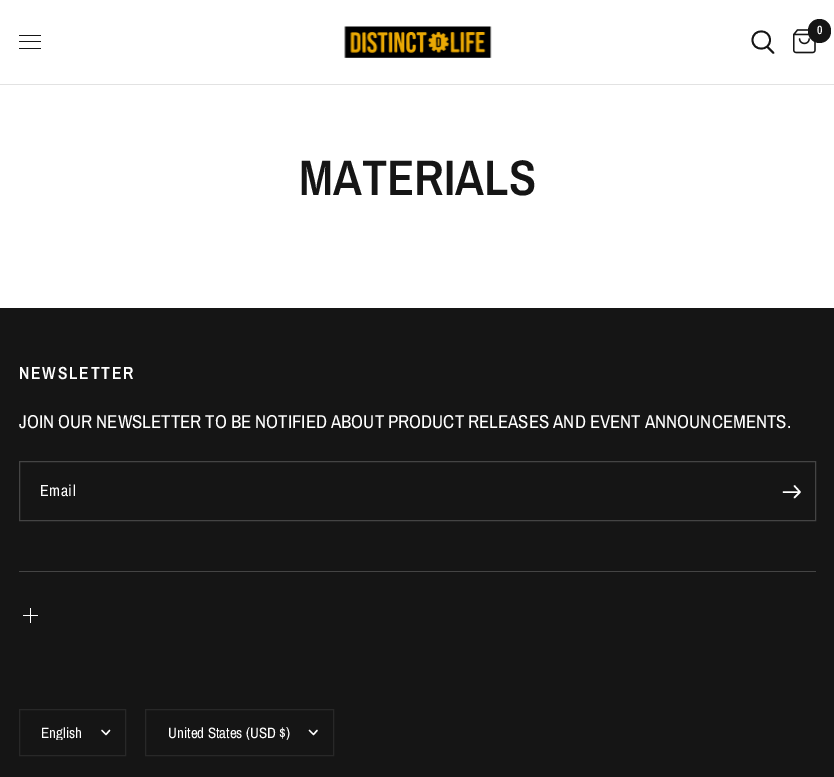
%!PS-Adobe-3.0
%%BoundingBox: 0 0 834 777
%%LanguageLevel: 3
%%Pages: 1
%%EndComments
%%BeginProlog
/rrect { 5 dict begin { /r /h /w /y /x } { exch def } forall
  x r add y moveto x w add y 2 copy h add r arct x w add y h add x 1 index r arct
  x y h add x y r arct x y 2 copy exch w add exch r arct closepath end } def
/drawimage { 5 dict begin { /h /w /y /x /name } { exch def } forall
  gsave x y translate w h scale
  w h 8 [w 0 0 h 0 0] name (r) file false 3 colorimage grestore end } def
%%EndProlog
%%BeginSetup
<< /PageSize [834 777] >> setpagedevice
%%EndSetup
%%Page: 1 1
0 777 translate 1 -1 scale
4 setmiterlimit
1 setgray
0 0 834 777 rectfill
0.886 setgray
0 84 834 1 rectfill
0.082 setgray
19 35 22 1 0.5 rrect fill
19 41 22 1 0.5 rrect fill
19 48 22 1 0.5 rrect fill
(images/1.raw) 344 26 148 32 drawimage
1.8 setlinewidth
1 setlinecap
1 setlinejoin
newpath 767.5 47 moveto 773.5 53 lineto 770 40 moveto 770 51.5 752.5 51.5 752.5 40 curveto 752.5 28.5 770 28.5 770 40 curveto closepath stroke
(images/2.raw) 793 29 23 25 drawimage
808 19 23 24 11.5 rrect fill
0 308 834 469 rectfill
0.267 setgray
1 setlinewidth
0 setlinecap
0 setlinejoin
19.5 461.5 796 59 rectstroke
1 setgray
1.5 setlinewidth
1 setlinecap
1 setlinejoin
newpath 783.5 492 moveto 798.5 492 lineto 794.5 486 moveto 800 492 lineto 794.5 497.5 lineto stroke
0.267 setgray
19 571 797 1 rectfill
1 setgray
30 608 1 15 rectfill
23 615 15 1 rectfill
0.157 setgray
1 setlinewidth
0 setlinecap
0 setlinejoin
19.5 709.5 106 46 rectstroke
1 setgray
1.4 setlinewidth
1 setlinecap
1 setlinejoin
newpath 109.5 730.5 moveto 106 734.5 lineto 102 730.5 lineto stroke
0.157 setgray
1 setlinewidth
0 setlinecap
0 setlinejoin
145.5 709.5 188 46 rectstroke
1 setgray
1.4 setlinewidth
1 setlinecap
1 setlinejoin
newpath 317 730.5 moveto 313.5 734.5 lineto 309.5 730.5 lineto stroke
/ArchivoNarrow-SemiBold [12 0 0 -12 0 0] selectfont
817 34 moveto (0) show
/ArchivoNarrow-SemiBold [50 0 0 -50 0 0] selectfont
0.082 setgray
299 195 moveto (MATERIALS) show
/ArchivoNarrow-SemiBold [17.5 0 0 -17.5 0 0] selectfont
1 setgray
19 379 moveto 1.75 0 (NEWSLETTER) ashow
/ArchivoNarrow-Regular [18.75 0 0 -18.75 0 0] selectfont
19 428 moveto -0.25 0 32 (JOIN OUR NEWSLETTER TO BE NOTIFIED ABOUT PRODUCT RELEASES AND EVENT ANNOUNCEMENTS.) widthshow
/ArchivoNarrow-Regular [16 0 0 -16 0 0] selectfont
40 496 moveto 0.5 0 (Email) ashow
gsave
41 725 54 15 rectclip
/ArchivoNarrow-Regular [15 0 0 -15 0 0] selectfont
41 738 moveto (English) show
grestore
gsave
168 725 135 15 rectclip
/ArchivoNarrow-Regular [15 0 0 -15 0 0] selectfont
168 738 moveto (United States \(USD $\)) show
grestore
showpage
%%EOF
